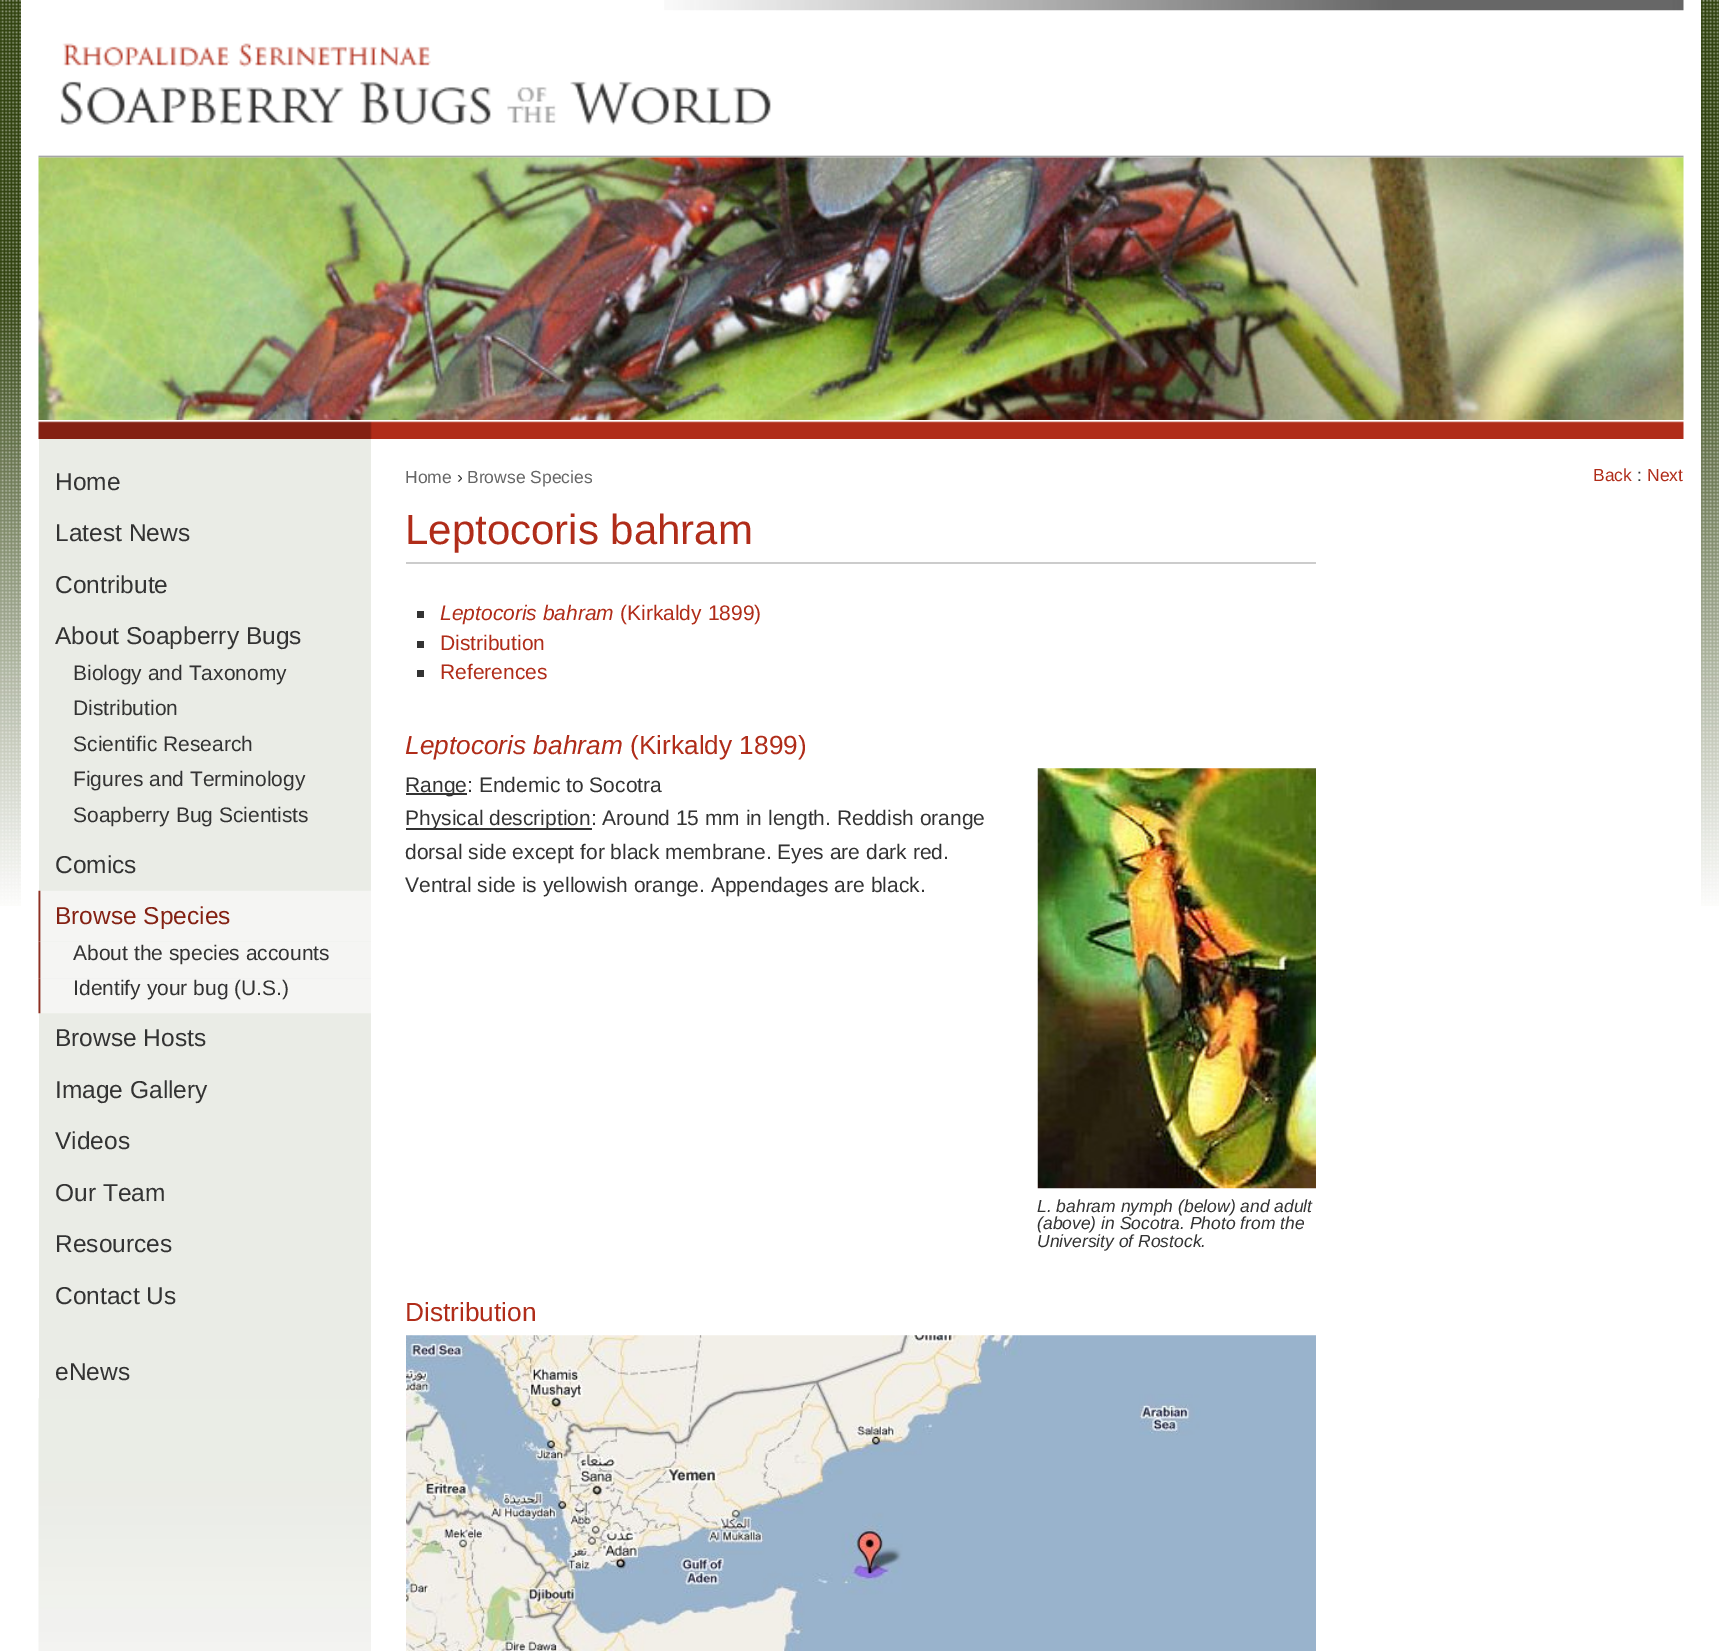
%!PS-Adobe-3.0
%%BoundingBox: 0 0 1719 1651
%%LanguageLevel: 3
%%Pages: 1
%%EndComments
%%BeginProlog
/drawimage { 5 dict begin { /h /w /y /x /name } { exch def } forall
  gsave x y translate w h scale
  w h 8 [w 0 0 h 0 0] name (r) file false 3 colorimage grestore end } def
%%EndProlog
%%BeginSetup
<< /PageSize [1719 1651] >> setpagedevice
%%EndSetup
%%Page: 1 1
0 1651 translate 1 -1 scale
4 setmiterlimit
1 setgray
0 0 1719 1651 rectfill
(images/1.raw) 0 0 1719 906 drawimage
21 0 1680 421 rectfill
(images/2.raw) 664 0 1020 11 drawimage
(images/3.raw) 38 10 1646 148 drawimage
(images/4.raw) 38 157 1646 263 drawimage
(images/5.raw) 21 421 1680 18 drawimage
21 439 1680 467 rectfill
0.918 0.925 0.902 setrgbcolor
39 439 332 960 rectfill
(images/6.raw) 38 890 333 52 drawimage
(images/7.raw) 38 941 333 38 drawimage
(images/8.raw) 38 978 333 36 drawimage
(images/9.raw) 38 1398 333 253 drawimage
0.8 setgray
406 562 910 2 rectfill
0.2 setgray
417 611 7 7 rectfill
417 641 7 7 rectfill
417 670 7 7 rectfill
406 793 61 2 rectfill
406 828 186 2 rectfill
(images/10.raw) 1037 768 279 421 drawimage
(images/11.raw) 406 1335 910 316 drawimage
/LiberationSans-Regular [24.5 0 0 -24.5 0 0] selectfont
55 490 moveto (Home) show
55 541 moveto (Latest News) show
55 593 moveto (Contribute) show
55 644 moveto (About Soapberry Bugs) show
/LiberationSans-Regular [21 0 0 -21 0 0] selectfont
73 680 moveto (Biology and Taxonomy) show
73 715 moveto (Distribution) show
73 751 moveto (Scientific Research) show
73 786 moveto (Figures and Terminology) show
73 822 moveto (Soapberry Bug Scientists) show
/LiberationSans-Regular [24.5 0 0 -24.5 0 0] selectfont
55 873 moveto (Comics) show
0.518 0.129 0.075 setrgbcolor
55 924 moveto (Browse Species) show
/LiberationSans-Regular [21 0 0 -21 0 0] selectfont
0.2 setgray
73 960 moveto (About the species accounts) show
73 995 moveto (Identify your bug \(U.S.\)) show
/LiberationSans-Regular [24.5 0 0 -24.5 0 0] selectfont
55 1046 moveto (Browse Hosts) show
55 1098 moveto (Image Gallery) show
55 1149 moveto (Videos) show
55 1201 moveto (Our Team) show
55 1252 moveto (Resources) show
55 1304 moveto (Contact Us) show
55 1380 moveto (eNews) show
/LiberationSans-Regular [17.5 0 0 -17.5 0 0] selectfont
0.4 setgray
405 483 moveto (Home) show
0.2 setgray
457 483 moveto (›) show
0.4 setgray
467 483 moveto (Browse Species) show
0.69 0.173 0.098 setrgbcolor
1593 481 moveto (Back) show
0.2 setgray
1637 481 moveto (:) show
0.69 0.173 0.098 setrgbcolor
1647 481 moveto (Next) show
/LiberationSans-Regular [42 0 0 -42 0 0] selectfont
405 544 moveto (Leptocoris bahram) show
/LiberationSans-Italic [21 0 0 -21 0 0] selectfont
440 620 moveto (Leptocoris bahram) show
/LiberationSans-Regular [21 0 0 -21 0 0] selectfont
620 620 moveto (\(Kirkaldy 1899\)) show
440 650 moveto (Distribution) show
440 679 moveto (References) show
/LiberationSans-Italic [26.25 0 0 -26.25 0 0] selectfont
405 754 moveto (Leptocoris bahram) show
/LiberationSans-Regular [26.25 0 0 -26.25 0 0] selectfont
630 754 moveto (\(Kirkaldy 1899\)) show
/LiberationSans-Regular [21 0 0 -21 0 0] selectfont
0.2 setgray
405 792 moveto (Range: Endemic to Socotra) show
405 825 moveto (Physical description: Around 15 mm in length. Reddish orange) show
405 859 moveto (dorsal side except for black membrane. Eyes are dark red.) show
405 892 moveto (Ventral side is yellowish orange. Appendages are black.) show
/LiberationSans-Italic [17.5 0 0 -17.5 0 0] selectfont
1037 1212 moveto (L. bahram nymph \(below\) and adult) show
1037 1229 moveto (\(above\) in Socotra. Photo from the) show
1037 1247 moveto (University of Rostock.) show
/LiberationSans-Regular [26.25 0 0 -26.25 0 0] selectfont
0.69 0.173 0.098 setrgbcolor
405 1321 moveto (Distribution) show
showpage
%%EOF
